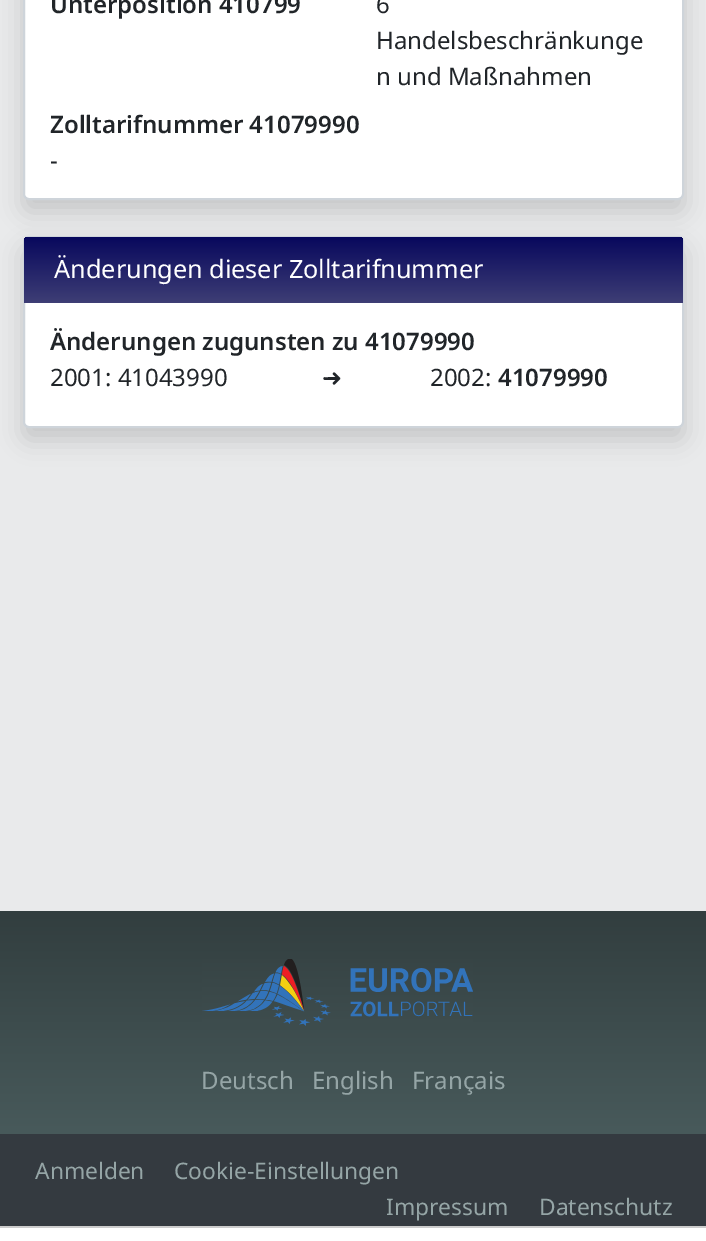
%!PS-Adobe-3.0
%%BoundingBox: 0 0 706 1241
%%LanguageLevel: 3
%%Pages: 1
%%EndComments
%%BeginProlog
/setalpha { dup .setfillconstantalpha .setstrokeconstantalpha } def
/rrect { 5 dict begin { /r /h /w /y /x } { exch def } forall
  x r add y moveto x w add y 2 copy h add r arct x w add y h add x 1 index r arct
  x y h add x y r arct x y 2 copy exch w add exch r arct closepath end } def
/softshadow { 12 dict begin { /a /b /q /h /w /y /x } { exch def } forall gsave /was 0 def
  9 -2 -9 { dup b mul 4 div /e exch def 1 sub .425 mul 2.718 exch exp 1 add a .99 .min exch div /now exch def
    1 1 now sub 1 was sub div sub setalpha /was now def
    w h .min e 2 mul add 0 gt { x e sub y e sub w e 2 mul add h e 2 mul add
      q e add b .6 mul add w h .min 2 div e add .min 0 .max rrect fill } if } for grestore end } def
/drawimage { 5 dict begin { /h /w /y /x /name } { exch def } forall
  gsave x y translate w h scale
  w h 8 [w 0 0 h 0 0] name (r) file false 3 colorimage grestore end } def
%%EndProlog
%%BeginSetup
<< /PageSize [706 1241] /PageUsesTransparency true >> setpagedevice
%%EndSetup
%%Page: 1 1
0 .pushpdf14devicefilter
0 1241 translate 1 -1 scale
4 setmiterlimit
0.204 0.227 0.251 setrgbcolor
0 0 706 1241 rectfill
0.914 0.918 0.922 setrgbcolor
0 0 706 911 rectfill
0 setgray
23 -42 661 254 6 12 0.15 softshadow
1 setgray
24 -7 659 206 5 rrect gsave fill grestore
0.808 0.831 0.855 setrgbcolor
2 setlinewidth
stroke
0 setgray
23 248 661 192 6 12 0.15 softshadow
1 setgray
24 237 659 190 5 rrect gsave fill grestore
0.808 0.831 0.855 setrgbcolor
stroke
gsave newpath 29 237 moveto 678 237 lineto 681 237 683 239 683 242 curveto 683 303 lineto 24 303 lineto 24 242 lineto 24 239 26 237 29 237 curveto closepath clip newpath
<< /ShadingType 2 /ColorSpace /DeviceRGB /Coords [353 237 353 303] /Extend [true true] /Function << /FunctionType 2 /Domain [0 1] /C0 [0.031 0.031 0.365] /C1 [0.243 0.243 0.459] /N 1 >> >> shfill grestore
gsave newpath 0 911 moveto 706 911 lineto 706 1134 lineto 0 1134 lineto closepath clip newpath
<< /ShadingType 2 /ColorSpace /DeviceRGB /Coords [353 1134 353 911] /Extend [true true] /Function << /FunctionType 2 /Domain [0 1] /C0 [0.282 0.353 0.357] /C1 [0.196 0.243 0.247] /N 1 >> >> shfill grestore
(images/1.raw) 202 959 271 67 drawimage
1 setgray
0 1228 706 13 rectfill
0.8 setgray
0 1226 706 2 rectfill
/NotoSans-SemiBold [24 0 0 -24 0 0] selectfont
0.129 0.145 0.161 setrgbcolor
50 13 moveto (Unterposition 410799) show
/NotoSans-Regular [24 0 0 -24 0 0] selectfont
376 13 moveto (6) show
376 49 moveto (Handelsbeschränkunge) show
376 85 moveto (n und Maßnahmen) show
/NotoSans-SemiBold [24 0 0 -24 0 0] selectfont
50 133 moveto (Zolltarifnummer 41079990) show
/NotoSans-Regular [24 0 0 -24 0 0] selectfont
50 169 moveto (-) show
/NotoSans-Regular [25.25 0 0 -25.25 0 0] selectfont
1 setgray
54 278 moveto (Änderungen dieser Zolltarifnummer) show
/NotoSans-SemiBold [24 0 0 -24 0 0] selectfont
0.129 0.145 0.161 setrgbcolor
50 350 moveto (Änderungen zugunsten zu 41079990) show
/NotoSans-Regular [24 0 0 -24 0 0] selectfont
50 386 moveto (2001: 41043990) show
/DejaVuSans-Regular [24 0 0 -24 0 0] selectfont
322 386 moveto (➜) show
/NotoSans-Regular [24 0 0 -24 0 0] selectfont
430 386 moveto (2002:) show
/NotoSans-SemiBold [24 0 0 -24 0 0] selectfont
498 386 moveto (41079990) show
/NotoSans-Regular [24 0 0 -24 0 0] selectfont
0.584 0.647 0.651 setrgbcolor
201 1089 moveto (Deutsch) show
312 1089 moveto (English) show
412 1089 moveto (Français) show
/NotoSans-Regular [22.75 0 0 -22.75 0 0] selectfont
35 1179 moveto (Anmelden) show
174 1179 moveto (Cookie-Einstellungen) show
386 1215 moveto (Impressum) show
539 1215 moveto (Datenschutz) show
.poppdf14devicefilter showpage
%%EOF
